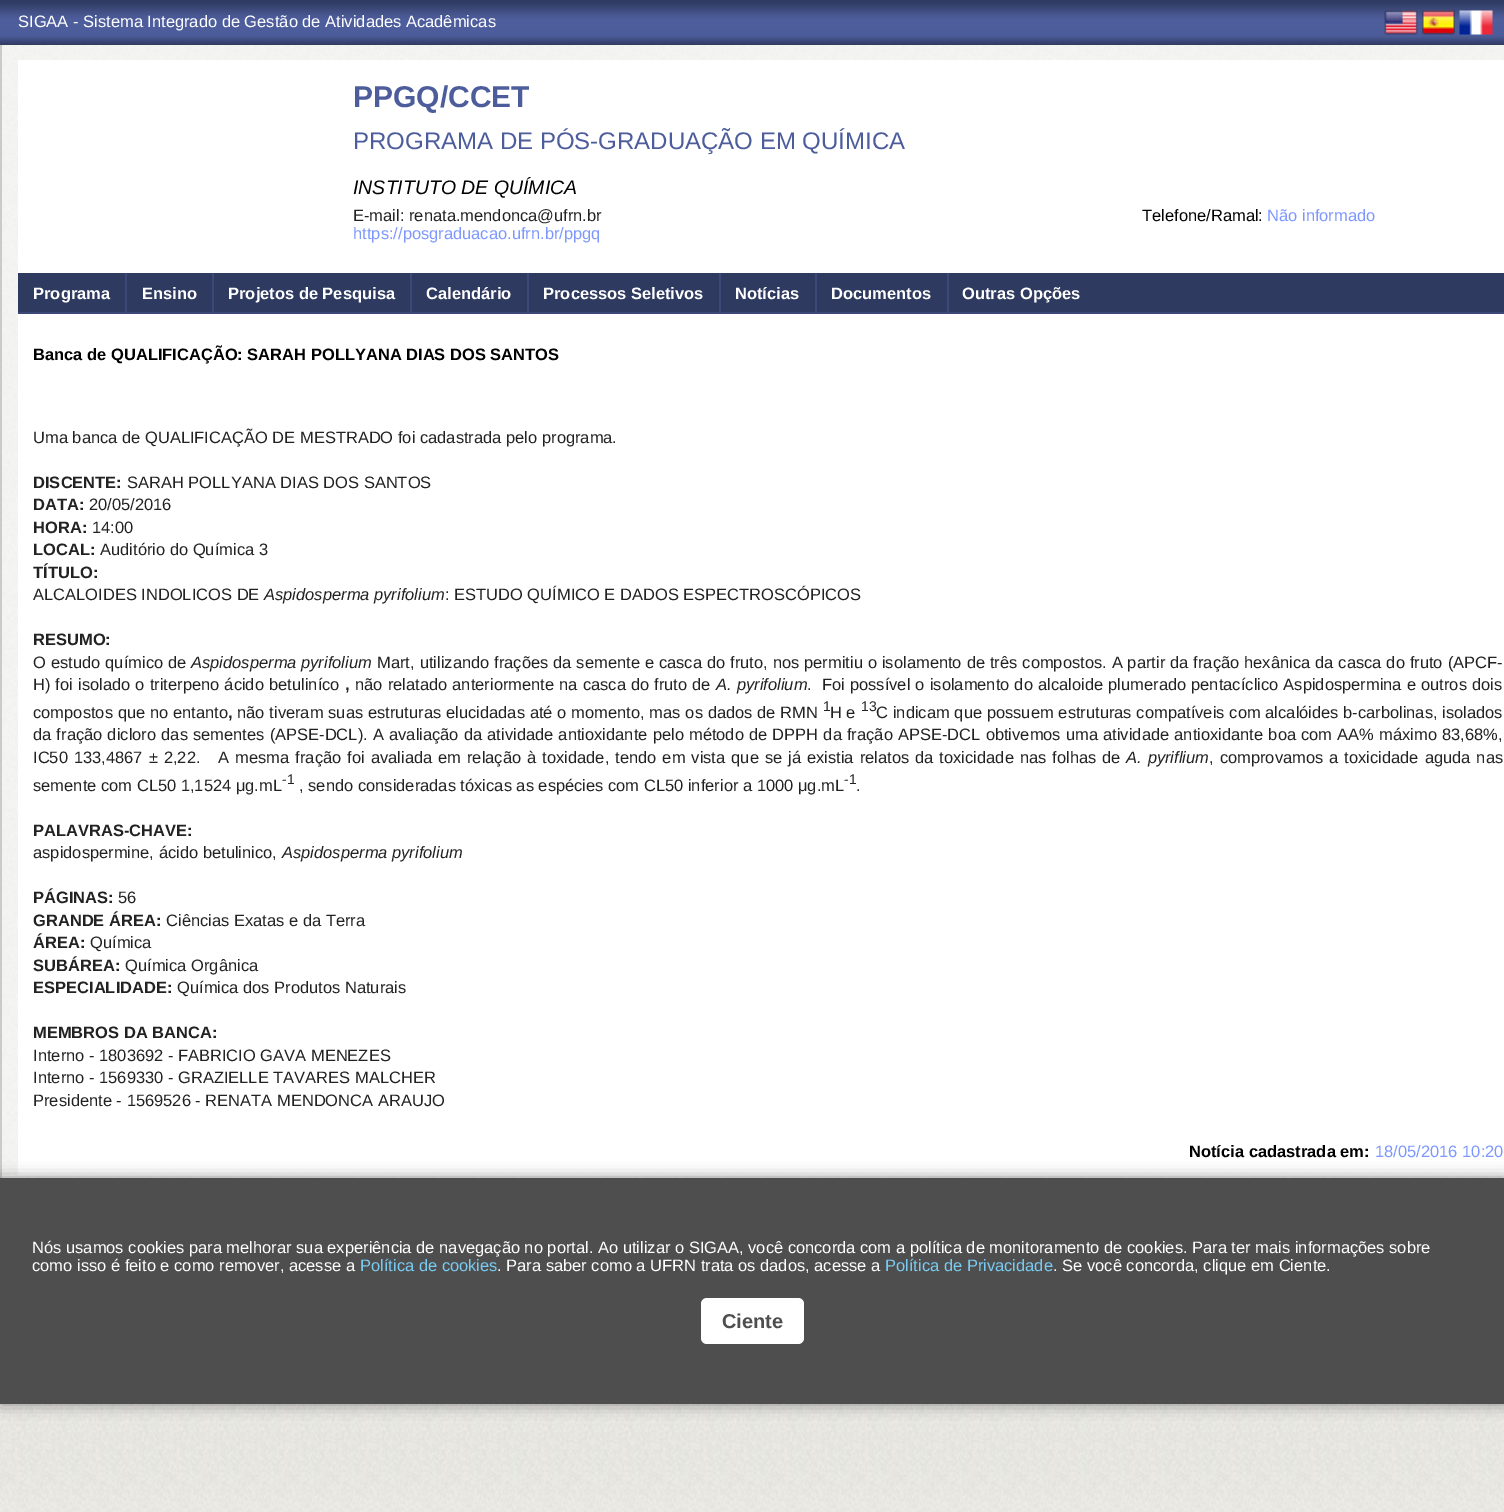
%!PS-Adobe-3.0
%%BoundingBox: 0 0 1504 1512
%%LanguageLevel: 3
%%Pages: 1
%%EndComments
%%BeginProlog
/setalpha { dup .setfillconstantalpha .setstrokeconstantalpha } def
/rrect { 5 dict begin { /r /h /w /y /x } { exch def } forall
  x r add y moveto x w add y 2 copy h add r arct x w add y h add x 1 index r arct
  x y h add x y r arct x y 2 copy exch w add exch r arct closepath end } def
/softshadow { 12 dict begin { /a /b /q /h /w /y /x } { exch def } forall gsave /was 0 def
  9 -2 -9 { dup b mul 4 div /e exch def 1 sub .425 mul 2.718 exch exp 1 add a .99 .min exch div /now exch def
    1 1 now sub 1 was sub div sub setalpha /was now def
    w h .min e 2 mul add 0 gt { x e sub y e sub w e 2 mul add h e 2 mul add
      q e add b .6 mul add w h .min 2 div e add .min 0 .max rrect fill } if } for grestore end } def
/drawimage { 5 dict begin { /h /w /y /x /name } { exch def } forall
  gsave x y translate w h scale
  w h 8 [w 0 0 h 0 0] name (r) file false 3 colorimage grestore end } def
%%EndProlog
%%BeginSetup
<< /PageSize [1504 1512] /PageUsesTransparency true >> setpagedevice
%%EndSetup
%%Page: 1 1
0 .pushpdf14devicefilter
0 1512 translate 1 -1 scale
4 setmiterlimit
1 setgray
0 0 1504 1512 rectfill
(images/1.raw) 0 1404 1504 108 drawimage
(images/2.raw) 0 0 1504 45 drawimage
(images/3.raw) 1384 10 34 25 drawimage
(images/4.raw) 1422 10 33 25 drawimage
(images/5.raw) 1459 10 34 25 drawimage
(images/6.raw) 2 45 1502 1133 drawimage
0.792 0.792 0.78 setrgbcolor
0 45 2 1133 rectfill
1 setgray
18 60 1486 1115 rectfill
0.184 0.227 0.376 setrgbcolor
18 273 1486 39 rectfill
0.231 0.282 0.471 setrgbcolor
18 312 1486 2 rectfill
125 273 2 41 rectfill
212 273 2 41 rectfill
410 273 2 41 rectfill
527 273 2 41 rectfill
719 273 2 41 rectfill
815 273 2 41 rectfill
947 273 2 41 rectfill
0 setgray
0 1178 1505 226 0 7.5 0.4 softshadow
0.306 setgray
0 1178 1504 226 rectfill
1 setgray
701 1298 103 46 6 rrect fill
/LiberationSans-Regular [16.5 0 0 -16.5 0 0] selectfont
18 27 moveto (SIGAA - Sistema Integrado de Gestão de Atividades Acadêmicas) show
/LiberationSans-Bold [30 0 0 -30 0 0] selectfont
0.302 0.365 0.612 setrgbcolor
353 107 moveto (PPGQ/CCET) show
/LiberationSans-Regular [24 0 0 -24 0 0] selectfont
353 149 moveto (PROGRAMA DE PÓS-GRADUAÇÃO EM QUÍMICA) show
/LiberationSans-Italic [19.5 0 0 -19.5 0 0] selectfont
0 setgray
353 194 moveto (INSTITUTO DE QUÍMICA) show
/LiberationSans-Regular [16.5 0 0 -16.5 0 0] selectfont
0.133 setgray
353 221 moveto (E-mail: renata.mendonca@ufrn.br) show
0 setgray
1142 221 moveto (Telefone/Ramal:) show
0.49 0.592 0.996 setrgbcolor
1267 221 moveto (Não informado) show
353 239 moveto (https://posgraduacao.ufrn.br/ppgq) show
/LiberationSans-Bold [16.5 0 0 -16.5 0 0] selectfont
1 setgray
33 299 moveto (Programa) show
142 299 moveto (Ensino) show
228 299 moveto (Projetos de Pesquisa) show
426 299 moveto (Calendário) show
543 299 moveto (Processos Seletivos) show
735 299 moveto (Notícias) show
831 299 moveto (Documentos) show
962 299 moveto (Outras Opções) show
0 setgray
33 360 moveto (Banca de QUALIFICAÇÃO: SARAH POLLYANA DIAS DOS SANTOS) show
/LiberationSans-Regular [16.5 0 0 -16.5 0 0] selectfont
0.133 setgray
33 443 moveto (Uma banca de QUALIFICAÇÃO DE MESTRADO foi cadastrada pelo programa.) show
/LiberationSans-Bold [16.5 0 0 -16.5 0 0] selectfont
33 488 moveto (DISCENTE:) show
/LiberationSans-Regular [16.5 0 0 -16.5 0 0] selectfont
127 488 moveto (SARAH POLLYANA DIAS DOS SANTOS) show
/LiberationSans-Bold [16.5 0 0 -16.5 0 0] selectfont
33 510 moveto (DATA:) show
/LiberationSans-Regular [16.5 0 0 -16.5 0 0] selectfont
89 510 moveto (20/05/2016) show
/LiberationSans-Bold [16.5 0 0 -16.5 0 0] selectfont
33 533 moveto (HORA:) show
/LiberationSans-Regular [16.5 0 0 -16.5 0 0] selectfont
92 533 moveto (14:00) show
/LiberationSans-Bold [16.5 0 0 -16.5 0 0] selectfont
33 555 moveto (LOCAL:) show
/LiberationSans-Regular [16.5 0 0 -16.5 0 0] selectfont
100 555 moveto (Auditório do Química 3) show
/LiberationSans-Bold [16.5 0 0 -16.5 0 0] selectfont
33 578 moveto (TÍTULO:) show
/LiberationSans-Regular [16.5 0 0 -16.5 0 0] selectfont
33 600 moveto (ALCALOIDES INDOLICOS DE) show
/LiberationSans-Italic [16.5 0 0 -16.5 0 0] selectfont
264 600 moveto (Aspidosperma pyrifolium) show
/LiberationSans-Regular [16.5 0 0 -16.5 0 0] selectfont
445 600 moveto (: ESTUDO QUÍMICO E DADOS ESPECTROSCÓPICOS) show
/LiberationSans-Bold [16.5 0 0 -16.5 0 0] selectfont
33 645 moveto (RESUMO:) show
/LiberationSans-Regular [16.5 0 0 -16.5 0 0] selectfont
33 668 moveto 0.35 0 32 (O estudo químico de) widthshow
/LiberationSans-Italic [16.5 0 0 -16.5 0 0] selectfont
191 668 moveto (Aspidosperma pyrifolium) show
/LiberationSans-Regular [16.5 0 0 -16.5 0 0] selectfont
377 668 moveto 0.35 0 32 (Mart, utilizando frações da semente e casca do fruto, nos permitiu o isolamento de três compostos. A partir da fração hexânica da casca do fruto \(APCF-) widthshow
33 690 moveto 0.5 0 32 (H\) foi isolado o triterpeno ácido betuliníco) widthshow
/LiberationSans-Bold [16.5 0 0 -16.5 0 0] selectfont
345 690 moveto (,) show
/LiberationSans-Regular [16.5 0 0 -16.5 0 0] selectfont
355 690 moveto 0.5 0 32 (não relatado anteriormente na casca do fruto de) widthshow
/LiberationSans-Italic [16.5 0 0 -16.5 0 0] selectfont
716 690 moveto 0.55 0 32 (A. pyrifolium) widthshow
/LiberationSans-Regular [16.5 0 0 -16.5 0 0] selectfont
807 690 moveto 0.5 0 32 (.  Foi possível o isolamento do alcaloide plumerado pentacíclico Aspidospermina e outros dois) widthshow
33 718 moveto 0.2 0 32 (compostos que no entanto) widthshow
/LiberationSans-Bold [16.5 0 0 -16.5 0 0] selectfont
228 718 moveto (,) show
/LiberationSans-Regular [16.5 0 0 -16.5 0 0] selectfont
237 718 moveto 0.2 0 32 (não tiveram suas estruturas elucidadas até o momento, mas os dados de RMN) widthshow
/LiberationSans-Regular [14 0 0 -14 0 0] selectfont
823 711 moveto (1) show
/LiberationSans-Regular [16.5 0 0 -16.5 0 0] selectfont
830 718 moveto (H e) show
/LiberationSans-Regular [14 0 0 -14 0 0] selectfont
861 711 moveto (13) show
/LiberationSans-Regular [16.5 0 0 -16.5 0 0] selectfont
876 718 moveto 0.2 0 32 (C indicam que possuem estruturas compatíveis com alcalóides) widthshow
1343 718 moveto (b-carbolinas, isolados) show
33 740 moveto 0.55 0 32 (da fração dicloro das sementes \(APSE-DCL\). A avaliação da atividade antioxidante pelo método de DPPH da fração APSE-DCL obtivemos uma atividade antioxidante boa com AA% máximo 83,68%,) widthshow
33 763 moveto 1.4 0 32 (IC50 133,4867 ± 2,22.   A mesma fração foi avaliada em relação à toxidade, tendo em vista que se já existia relatos da toxicidade nas folhas de) widthshow
/LiberationSans-Italic [16.5 0 0 -16.5 0 0] selectfont
1126 763 moveto 1.4 0 32 (A. pyriflium) widthshow
/LiberationSans-Regular [16.5 0 0 -16.5 0 0] selectfont
1209 763 moveto 1.4 0 32 (, comprovamos a toxicidade aguda nas) widthshow
33 791 moveto (semente com CL50 1,1524 μg.mL) show
/LiberationSans-Regular [14 0 0 -14 0 0] selectfont
282 784 moveto (-1) show
/LiberationSans-Regular [16.5 0 0 -16.5 0 0] selectfont
299 791 moveto (, sendo consideradas tóxicas as espécies com CL50 inferior a 1000 μg.mL) show
/LiberationSans-Regular [14 0 0 -14 0 0] selectfont
844 784 moveto (-1) show
/LiberationSans-Regular [16.5 0 0 -16.5 0 0] selectfont
856 791 moveto (.) show
/LiberationSans-Bold [16.5 0 0 -16.5 0 0] selectfont
33 836 moveto (PALAVRAS-CHAVE:) show
/LiberationSans-Regular [16.5 0 0 -16.5 0 0] selectfont
33 858 moveto (aspidospermine, ácido betulinico,) show
/LiberationSans-Italic [16.5 0 0 -16.5 0 0] selectfont
282 858 moveto (Aspidosperma pyrifolium) show
/LiberationSans-Bold [16.5 0 0 -16.5 0 0] selectfont
33 903 moveto (PÁGINAS:) show
/LiberationSans-Regular [16.5 0 0 -16.5 0 0] selectfont
118 903 moveto (56) show
/LiberationSans-Bold [16.5 0 0 -16.5 0 0] selectfont
33 926 moveto (GRANDE ÁREA:) show
/LiberationSans-Regular [16.5 0 0 -16.5 0 0] selectfont
166 926 moveto (Ciências Exatas e da Terra) show
/LiberationSans-Bold [16.5 0 0 -16.5 0 0] selectfont
33 948 moveto (ÁREA:) show
/LiberationSans-Regular [16.5 0 0 -16.5 0 0] selectfont
90 948 moveto (Química) show
/LiberationSans-Bold [16.5 0 0 -16.5 0 0] selectfont
33 971 moveto (SUBÁREA:) show
/LiberationSans-Regular [16.5 0 0 -16.5 0 0] selectfont
125 971 moveto (Química Orgânica) show
/LiberationSans-Bold [16.5 0 0 -16.5 0 0] selectfont
33 993 moveto (ESPECIALIDADE:) show
/LiberationSans-Regular [16.5 0 0 -16.5 0 0] selectfont
177 993 moveto (Química dos Produtos Naturais) show
/LiberationSans-Bold [16.5 0 0 -16.5 0 0] selectfont
33 1038 moveto (MEMBROS DA BANCA:) show
/LiberationSans-Regular [16.5 0 0 -16.5 0 0] selectfont
33 1061 moveto (Interno - 1803692 - FABRICIO GAVA MENEZES) show
33 1083 moveto (Interno - 1569330 - GRAZIELLE TAVARES MALCHER) show
33 1106 moveto (Presidente - 1569526 - RENATA MENDONCA ARAUJO) show
/LiberationSans-Bold [16.5 0 0 -16.5 0 0] selectfont
0 setgray
1189 1157 moveto (Notícia cadastrada em:) show
/LiberationSans-Regular [16.5 0 0 -16.5 0 0] selectfont
0.49 0.592 0.996 setrgbcolor
1375 1157 moveto (18/05/2016 10:20) show
1 setgray
32 1253 moveto (Nós usamos cookies para melhorar sua experiência de navegação no portal. Ao utilizar o SIGAA, você concorda com a política de monitoramento de cookies. Para ter mais informações sobre) show
32 1271 moveto (como isso é feito e como remover, acesse a) show
0.475 0.796 0.949 setrgbcolor
360 1271 moveto (Política de cookies) show
1 setgray
497 1271 moveto (. Para saber como a UFRN trata os dados, acesse a) show
0.475 0.796 0.949 setrgbcolor
885 1271 moveto (Política de Privacidade) show
1 setgray
1053 1271 moveto (. Se você concorda, clique em Ciente.) show
/LiberationSans-Bold [20 0 0 -20 0 0] selectfont
0.306 setgray
722 1328 moveto (Ciente) show
.poppdf14devicefilter showpage
%%EOF
